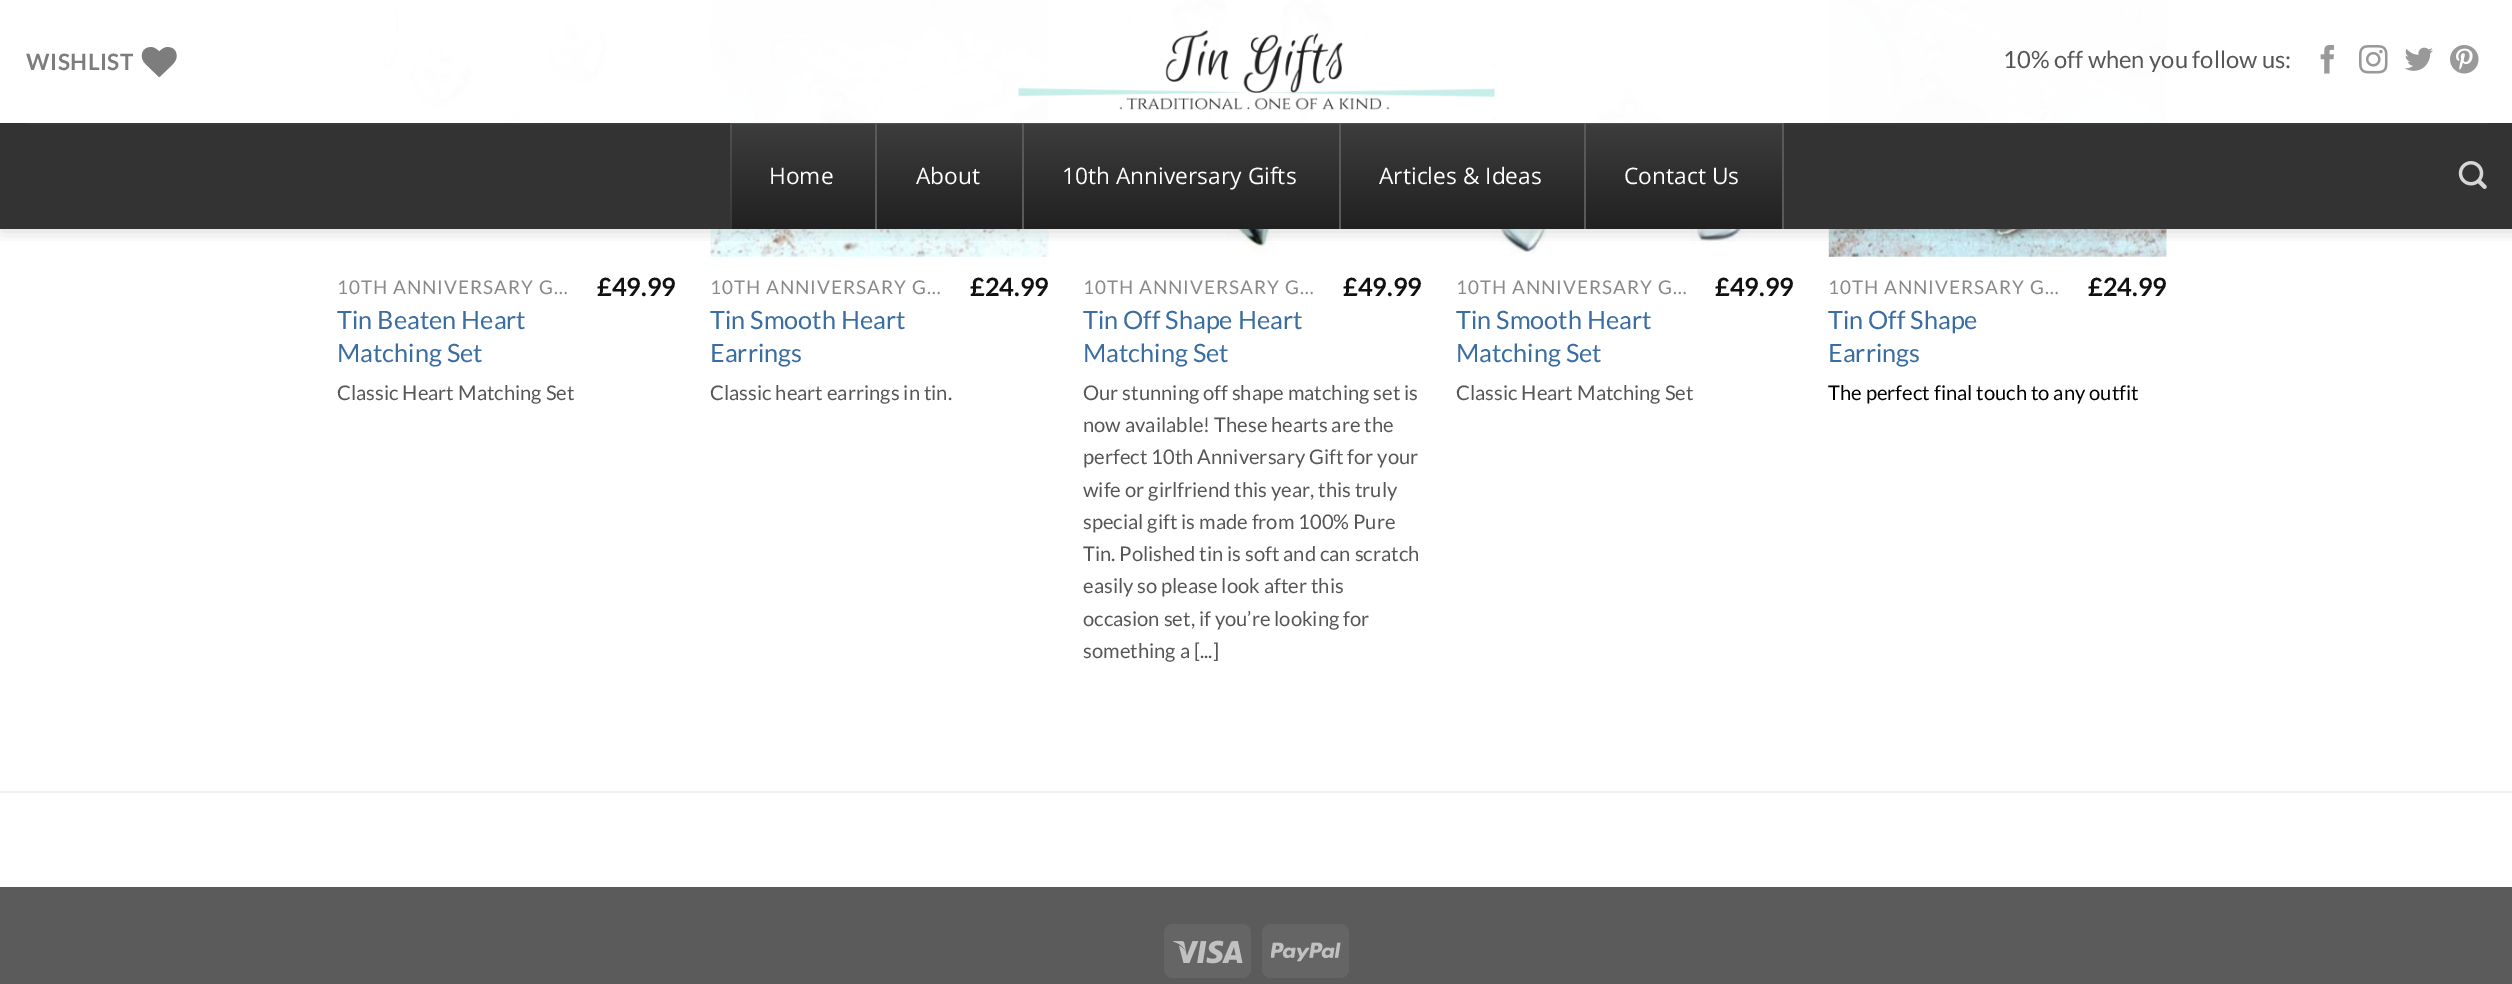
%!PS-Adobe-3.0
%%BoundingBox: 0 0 2512 984
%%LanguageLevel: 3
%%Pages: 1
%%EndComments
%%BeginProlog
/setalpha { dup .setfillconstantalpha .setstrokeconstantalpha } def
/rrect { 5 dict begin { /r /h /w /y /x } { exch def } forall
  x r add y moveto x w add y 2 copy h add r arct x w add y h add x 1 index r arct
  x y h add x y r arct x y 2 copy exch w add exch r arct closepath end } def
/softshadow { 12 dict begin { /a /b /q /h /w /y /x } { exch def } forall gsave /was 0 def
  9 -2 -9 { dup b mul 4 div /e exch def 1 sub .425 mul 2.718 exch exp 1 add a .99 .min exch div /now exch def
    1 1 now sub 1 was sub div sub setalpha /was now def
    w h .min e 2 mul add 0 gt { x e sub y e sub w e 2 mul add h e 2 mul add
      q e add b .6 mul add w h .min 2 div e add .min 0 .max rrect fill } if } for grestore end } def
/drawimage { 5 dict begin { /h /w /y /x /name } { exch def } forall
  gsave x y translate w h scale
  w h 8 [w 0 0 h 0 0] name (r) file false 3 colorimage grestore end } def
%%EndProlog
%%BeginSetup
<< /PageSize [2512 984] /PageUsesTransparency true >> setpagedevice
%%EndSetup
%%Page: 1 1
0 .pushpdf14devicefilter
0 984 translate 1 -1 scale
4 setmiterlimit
1 setgray
0 0 2512 984 rectfill
(images/8.raw) 371 0 242 123 drawimage
(images/9.raw) 710 0 339 257 drawimage
(images/10.raw) 1102 0 310 253 drawimage
(images/11.raw) 1472 0 315 255 drawimage
(images/12.raw) 1828 0 339 257 drawimage
gsave
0 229 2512 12 rectclip
0 setgray
2 2 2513 229 0 9 0.15 softshadow
grestore
0.88 setalpha
386 0 1781 123 rectfill
398 0 1769 123 rectfill
1 setalpha
(images/1.raw) 141 47 36 30 drawimage
(images/2.raw) 1018 29 477 91 drawimage
(images/3.raw) 2320 45 14 29 drawimage
(images/4.raw) 2359 45 29 29 drawimage
(images/5.raw) 2404 47 29 24 drawimage
(images/6.raw) 2450 45 29 29 drawimage
0.2 setgray
0 123 2512 106 rectfill
gsave newpath 730 123 moveto 1782 123 lineto 1782 229 lineto 730 229 lineto closepath clip newpath
<< /ShadingType 2 /ColorSpace /DeviceRGB /Coords [1257 122 1257 229] /Extend [true true] /Function << /FunctionType 2 /Domain [0 1] /C0 [0.239 0.239 0.239] /C1 [0.129 0.129 0.129] /N 1 >> >> shfill grestore
gsave
730 123 1053 106 rectclip
0.1 setalpha
1 setgray
newpath 556 -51 moveto 1956 -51 lineto 1956 402 lineto 556 402 lineto closepath 732 124 moveto 1785 124 lineto 1785 231 lineto 732 231 lineto closepath eofill
grestore
0.349 setgray
875 123 2 106 rectfill
1022 123 2 106 rectfill
1339 123 2 106 rectfill
1584 123 2 106 rectfill
1782 123 2 106 rectfill
0.1 setalpha
0.337 setgray
26 123 2461 2 rectfill
1 setalpha
(images/7.raw) 2458 161 29 28 drawimage
0.949 setgray
0 791 2512 2 rectfill
0.357 setgray
0 887 2512 97 rectfill
0.396 setgray
1164 924 87 54 9 rrect fill
(images/13.raw) 1173 940 70 24 drawimage
1262 924 87 54 9 rrect fill
(images/14.raw) 1271 942 70 20 drawimage
/Lato-Bold [22.5 0 0 -22.5 0 0] selectfont
0.49 setgray
26 70 moveto 0.5 0 (WISHLIST) ashow
/Lato-Regular [23.75 0 0 -23.75 0 0] selectfont
0.337 setgray
2003 68 moveto (10% off when you follow us:) show
/OpenSans-Regular [22.75 0 0 -22.75 0 0] selectfont
1 setgray
769 184 moveto (Home) show
916 184 moveto (About) show
1062 184 moveto (10th Anniversary Gifts) show
1379 184 moveto (Articles & Ideas) show
1624 184 moveto (Contact Us) show
/Lato-Regular [18.9 0 0 -18.9 0 0] selectfont
0.537 setgray
337 294 moveto 1 0 (10TH ANNIVERSARY G…) ashow
/Lato-Regular [25.25 0 0 -25.25 0 0] selectfont
0.227 0.427 0.631 setrgbcolor
337 329 moveto (Tin Beaten Heart) show
337 362 moveto (Matching Set) show
/Lato-Bold [25.25 0 0 -25.25 0 0] selectfont
0.067 setgray
597 296 moveto (£49.99) show
/Lato-Regular [20.2 0 0 -20.2 0 0] selectfont
0.337 setgray
337 400 moveto (Classic Heart Matching Set) show
/Lato-Regular [18.9 0 0 -18.9 0 0] selectfont
0.537 setgray
710 294 moveto 1 0 (10TH ANNIVERSARY G…) ashow
/Lato-Regular [25.25 0 0 -25.25 0 0] selectfont
0.227 0.427 0.631 setrgbcolor
710 329 moveto (Tin Smooth Heart) show
710 362 moveto (Earrings) show
/Lato-Bold [25.25 0 0 -25.25 0 0] selectfont
0.067 setgray
970 296 moveto (£24.99) show
/Lato-Regular [20.2 0 0 -20.2 0 0] selectfont
0.337 setgray
710 400 moveto (Classic heart earrings in tin.) show
/Lato-Regular [18.9 0 0 -18.9 0 0] selectfont
0.537 setgray
1083 294 moveto 1 0 (10TH ANNIVERSARY G…) ashow
/Lato-Regular [25.25 0 0 -25.25 0 0] selectfont
0.227 0.427 0.631 setrgbcolor
1083 329 moveto (Tin Off Shape Heart) show
1083 362 moveto (Matching Set) show
/Lato-Bold [25.25 0 0 -25.25 0 0] selectfont
0.067 setgray
1343 296 moveto (£49.99) show
/Lato-Regular [20.2 0 0 -20.2 0 0] selectfont
0.337 setgray
1083 400 moveto (Our stunning off shape matching set is) show
1083 432 moveto (now available! These hearts are the) show
1083 464 moveto (perfect 10th Anniversary Gift for your) show
1083 497 moveto (wife or girlfriend this year, this truly) show
1083 529 moveto (special gift is made from 100% Pure) show
1083 561 moveto (Tin. Polished tin is soft and can scratch) show
1083 593 moveto (easily so please look after this) show
1083 626 moveto (occasion set, if you’re looking for) show
1083 658 moveto (something a [...]) show
/Lato-Regular [18.9 0 0 -18.9 0 0] selectfont
0.537 setgray
1456 294 moveto 1 0 (10TH ANNIVERSARY G…) ashow
/Lato-Regular [25.25 0 0 -25.25 0 0] selectfont
0.227 0.427 0.631 setrgbcolor
1456 329 moveto (Tin Smooth Heart) show
1456 362 moveto (Matching Set) show
/Lato-Bold [25.25 0 0 -25.25 0 0] selectfont
0.067 setgray
1715 296 moveto (£49.99) show
/Lato-Regular [20.2 0 0 -20.2 0 0] selectfont
0.337 setgray
1456 400 moveto (Classic Heart Matching Set) show
/Lato-Regular [18.9 0 0 -18.9 0 0] selectfont
0.537 setgray
1828 294 moveto 1 0 (10TH ANNIVERSARY G…) ashow
/Lato-Regular [25.25 0 0 -25.25 0 0] selectfont
0.227 0.427 0.631 setrgbcolor
1828 329 moveto (Tin Off Shape) show
1828 362 moveto (Earrings) show
/Lato-Bold [25.25 0 0 -25.25 0 0] selectfont
0.067 setgray
2088 296 moveto (£24.99) show
/Lato-Regular [20.2 0 0 -20.2 0 0] selectfont
0 setgray
1828 400 moveto (The perfect final touch to any outfit) show
.poppdf14devicefilter showpage
%%EOF
